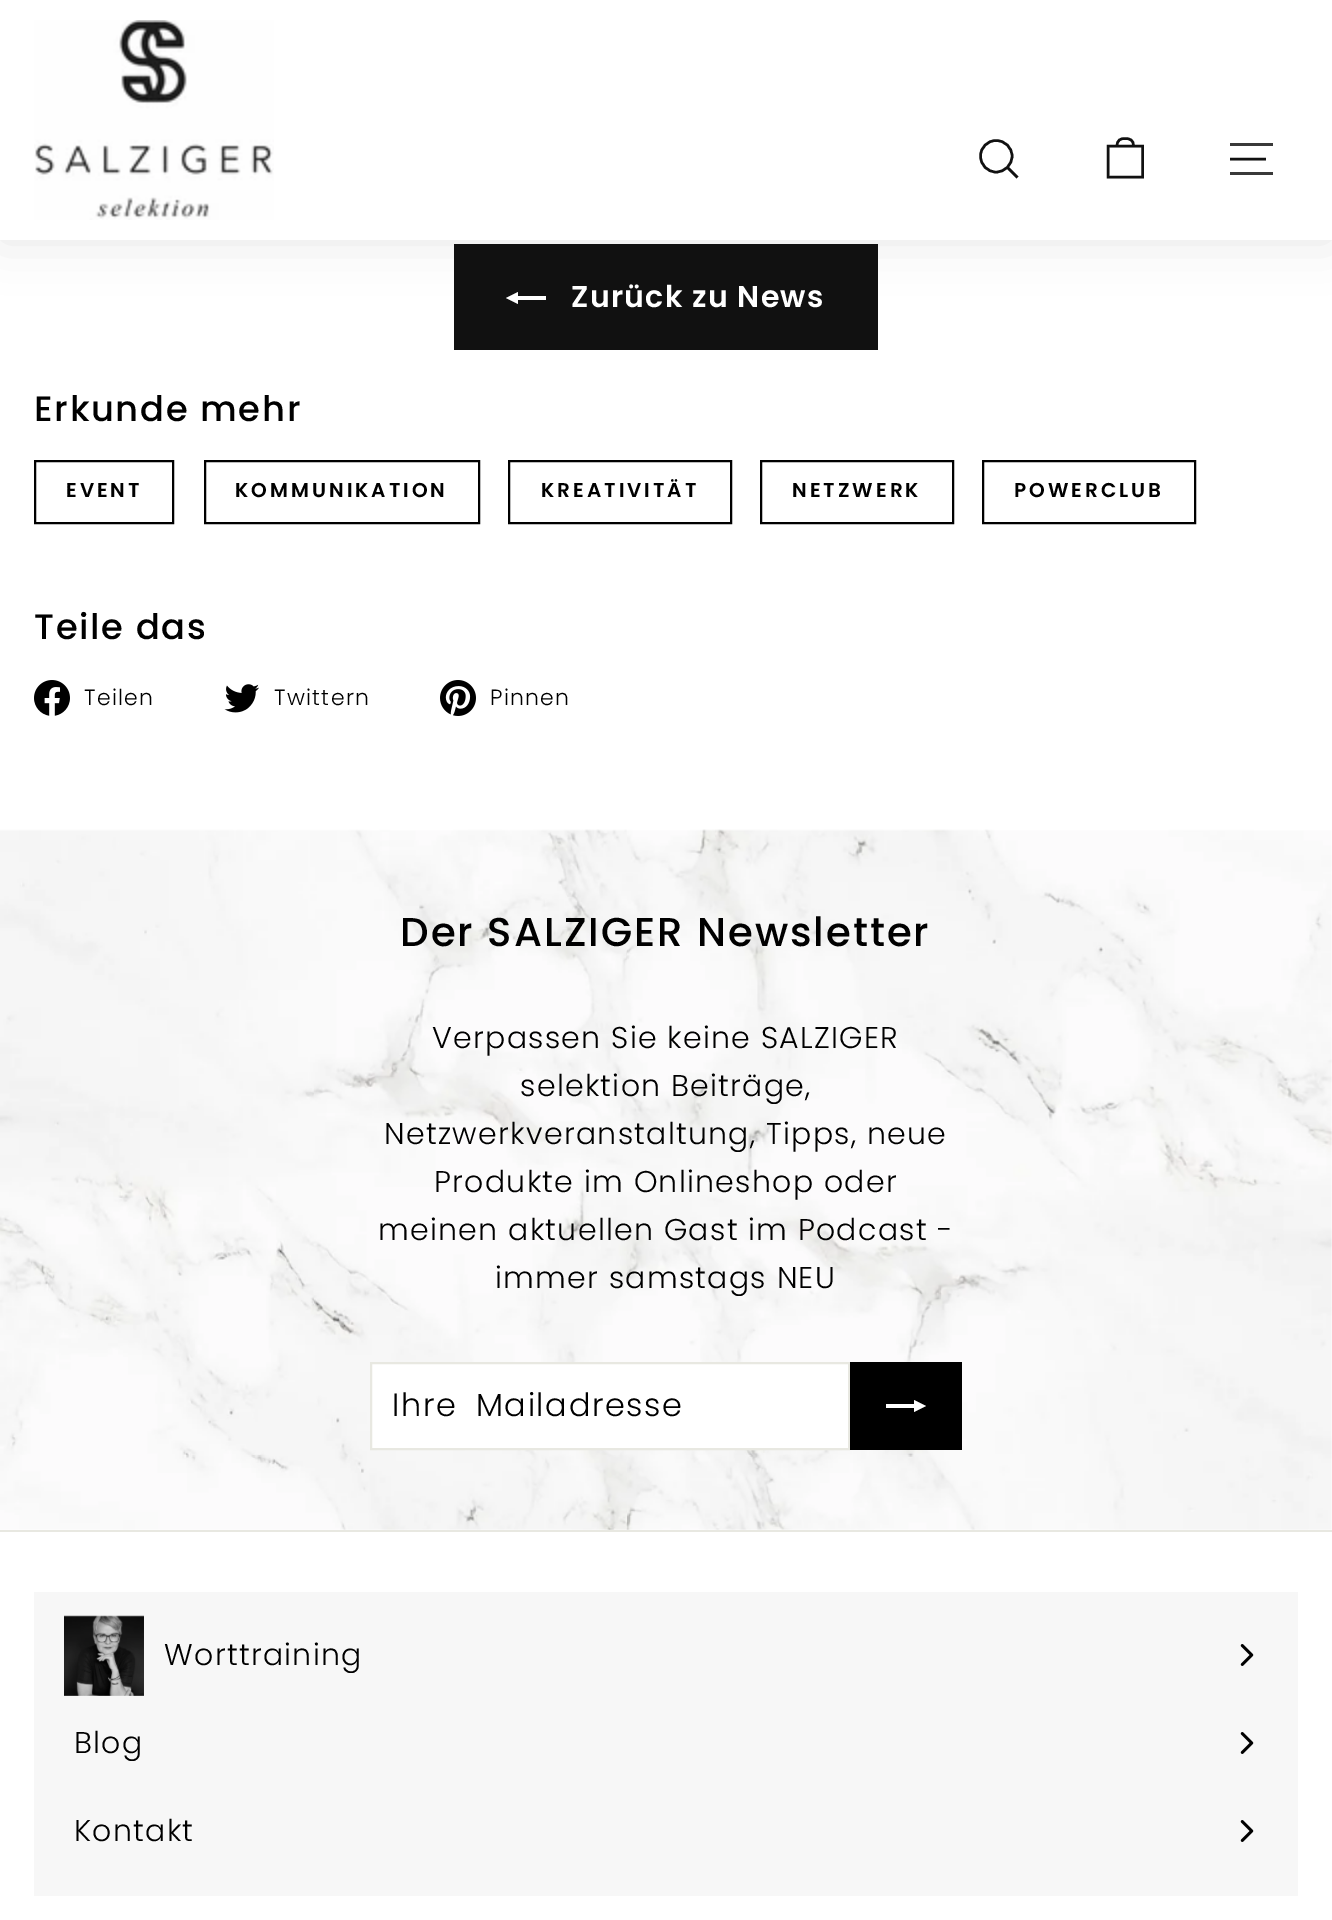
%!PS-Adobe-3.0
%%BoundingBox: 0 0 1332 1920
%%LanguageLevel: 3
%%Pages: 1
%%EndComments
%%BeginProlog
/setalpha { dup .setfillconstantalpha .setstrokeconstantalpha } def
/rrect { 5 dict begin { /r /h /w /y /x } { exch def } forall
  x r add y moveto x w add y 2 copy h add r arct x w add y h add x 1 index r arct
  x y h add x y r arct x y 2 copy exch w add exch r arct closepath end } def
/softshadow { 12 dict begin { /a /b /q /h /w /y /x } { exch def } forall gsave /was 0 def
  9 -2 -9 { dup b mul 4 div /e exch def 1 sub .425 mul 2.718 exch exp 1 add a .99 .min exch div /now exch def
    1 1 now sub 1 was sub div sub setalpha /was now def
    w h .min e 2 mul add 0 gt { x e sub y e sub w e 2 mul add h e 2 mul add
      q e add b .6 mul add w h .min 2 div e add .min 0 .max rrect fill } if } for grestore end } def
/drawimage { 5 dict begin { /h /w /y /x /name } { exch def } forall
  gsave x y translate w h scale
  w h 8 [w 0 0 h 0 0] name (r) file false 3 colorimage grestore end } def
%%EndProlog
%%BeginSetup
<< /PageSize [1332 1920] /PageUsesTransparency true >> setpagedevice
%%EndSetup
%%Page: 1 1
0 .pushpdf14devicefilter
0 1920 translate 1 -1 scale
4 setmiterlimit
1 setgray
0 0 1332 1920 rectfill
0.969 setgray
34 1592 1264 304 rectfill
0.067 setgray
454 244 424 106 rectfill
1 setgray
newpath 546 296 moveto 546 300 lineto 518 300 lineto 518 304 lineto 506 298 lineto 518 292 lineto 518 296 lineto closepath fill
0 setgray
0 0 1332 240 0 25 0.1 softshadow
1 setgray
0 0 1332 240 rectfill
(images/1.raw) 34 20 240 200 drawimage
0.067 setgray
2.5 setlinewidth
newpath 1012 156 moveto 1012 165 1005 172 996 172 curveto 987.5 172 980.5 165 980.5 156 curveto 980.5 147.5 987.5 140.5 996 140.5 curveto 1005 140.5 1012 147.5 1012 156 curveto closepath 1017.5 177.5 moveto 1007.5 167.5 lineto stroke
newpath 1117 146 moveto 1117 140 1120.5 138.5 1125 138.5 curveto 1130 138.5 1133.5 140 1133.5 146 curveto 1108 146 moveto 1142.5 146 lineto 1142.5 177 lineto 1108 177 lineto closepath stroke
0.224 setgray
1230 143 43 3 rectfill
0.067 setgray
newpath 1230 159 moveto 1266 159 lineto stroke
0.224 setgray
1230 172 43 3 rectfill
0 setgray
2 setlinewidth
35 461 138 62 rectstroke
205 461 274 62 rectstroke
509 461 222 62 rectstroke
761 461 192 62 rectstroke
983 461 212 62 rectstroke
(images/2.raw) 34 680 36 36 drawimage
(images/3.raw) 224 684 35 29 drawimage
(images/4.raw) 440 680 36 36 drawimage
(images/5.raw) 0 829 1332 701 drawimage
1 setgray
newpath 371 1363 moveto 849 1363 lineto 849 1449 lineto 371 1449 lineto closepath gsave fill grestore
0.91 0.91 0.882 setrgbcolor
stroke
0 setgray
850 1362 112 88 rectfill
1 setgray
newpath 886 1408 moveto 886 1404 lineto 914 1404 lineto 914 1400 lineto 926 1406 lineto 914 1412 lineto 914 1408 lineto closepath fill
0.91 0.91 0.882 setrgbcolor
0 1530 1332 2 rectfill
(images/6.raw) 64 1615 80 81 drawimage
(images/7.raw) 1240 1644 14 22 drawimage
(images/7.raw) 1240 1732 14 22 drawimage
(images/7.raw) 1240 1820 14 22 drawimage
/Poppins-SemiBold [30 0 0 -30 0 0] selectfont
1 setgray
571 307 moveto 1.3 0 (Zurück zu News) ashow
/Poppins-Medium [35.25 0 0 -35.25 0 0] selectfont
0 setgray
34 421 moveto 1.75 0 (Erkunde mehr) ashow
/Poppins-SemiBold [20 0 0 -20 0 0] selectfont
66 497 moveto 3 0 (EVENT) ashow
235 497 moveto 3 0 (KOMMUNIKATION) ashow
541 497 moveto 3 0 (KREATIVITÄT) ashow
792 497 moveto 3 0 (NETZWERK) ashow
1014 497 moveto 3 0 (POWERCLUB) ashow
/Poppins-Medium [35.25 0 0 -35.25 0 0] selectfont
34 639 moveto 1.75 0 (Teile das) ashow
/Poppins-Light [22 0 0 -22 0 0] selectfont
84 705 moveto 1.3 0 (Teilen) ashow
274 705 moveto 1.3 0 (Twittern) ashow
490 705 moveto 1.3 0 (Pinnen) ashow
/Poppins-Medium [40.25 0 0 -40.25 0 0] selectfont
400 946 moveto 2 0 (Der SALZIGER Newsletter) ashow
/Poppins-Light [30 0 0 -30 0 0] selectfont
432 1048 moveto 1.3 0 (Verpassen Sie keine SALZIGER) ashow
520 1096 moveto 1.3 0 (selektion Beiträge,) ashow
384 1144 moveto 1.3 0 (Netzwerkveranstaltung, Tipps, neue) ashow
434 1192 moveto 1.3 0 (Produkte im Onlineshop oder) ashow
378 1240 moveto 1.3 0 (meinen aktuellen Gast im Podcast -) ashow
495 1288 moveto 1.3 0 (immer samstags NEU) ashow
/Poppins-Light [32 0 0 -32 0 0] selectfont
392 1416 moveto 8 0 32 1.6 0 (Ihre Mailadresse) awidthshow
/Poppins-Light [30 0 0 -30 0 0] selectfont
164 1665 moveto 1.3 0 (Worttraining) ashow
74 1753 moveto 1.3 0 (Blog) ashow
74 1841 moveto 1.3 0 (Kontakt) ashow
.poppdf14devicefilter showpage
%%EOF
